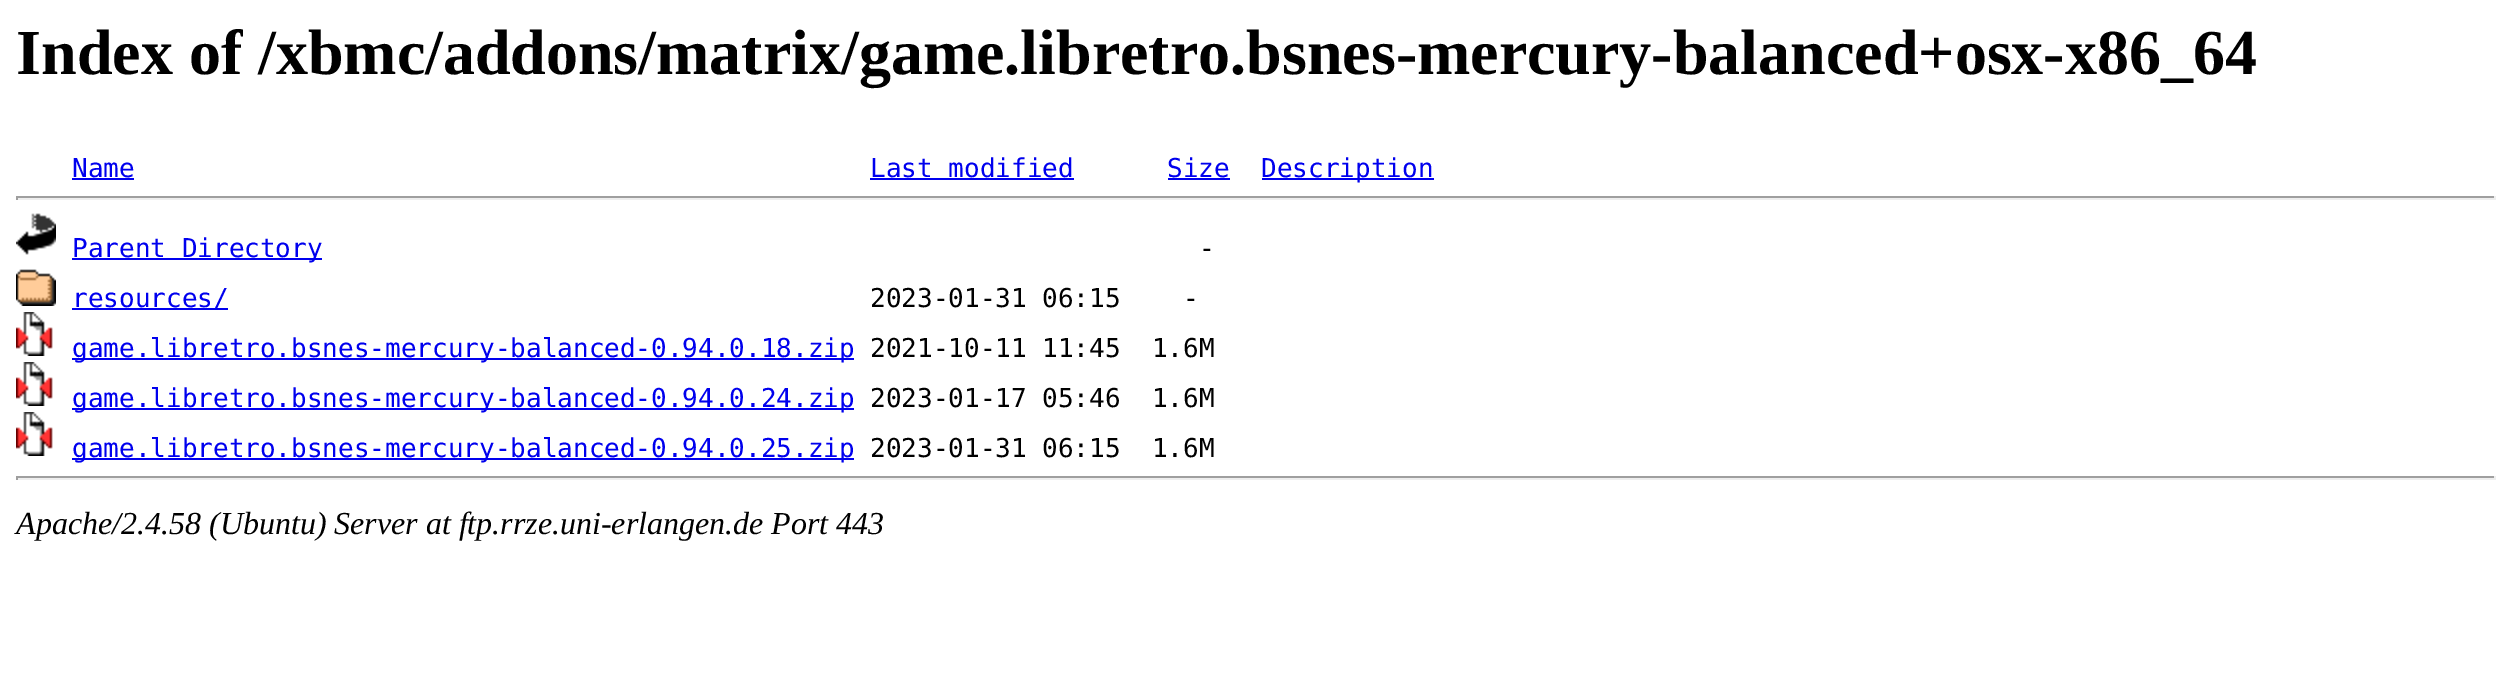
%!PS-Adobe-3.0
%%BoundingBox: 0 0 2511 682
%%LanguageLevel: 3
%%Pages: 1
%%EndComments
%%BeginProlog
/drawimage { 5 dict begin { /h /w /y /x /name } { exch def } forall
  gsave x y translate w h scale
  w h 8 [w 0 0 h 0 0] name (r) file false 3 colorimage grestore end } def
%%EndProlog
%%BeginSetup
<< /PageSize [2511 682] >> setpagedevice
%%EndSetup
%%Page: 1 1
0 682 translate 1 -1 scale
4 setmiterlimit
1 setgray
0 0 2511 682 rectfill
0 0 0.933 setrgbcolor
72 178 62 2 rectfill
870 178 204 2 rectfill
1168 178 62 2 rectfill
1262 178 172 2 rectfill
0.624 setgray
16 196 2480 2 rectfill
0.933 setgray
2494 196 2 4 rectfill
16 198 2480 2 rectfill
0.624 setgray
16 196 2 4 rectfill
(images/1.raw) 16 213 40 42 drawimage
0 0 0.933 setrgbcolor
72 258 250 2 rectfill
(images/2.raw) 16 269 40 37 drawimage
72 308 156 2 rectfill
(images/3.raw) 16 312 37 44 drawimage
72 358 782 2 rectfill
(images/3.raw) 16 362 37 44 drawimage
72 408 782 2 rectfill
(images/3.raw) 16 412 37 44 drawimage
72 458 782 2 rectfill
0.624 setgray
16 476 2480 2 rectfill
0.933 setgray
2494 476 2 4 rectfill
16 478 2480 2 rectfill
0.624 setgray
16 476 2 4 rectfill
/LiberationSerif-Bold [64 0 0 -64 0 0] selectfont
0 setgray
16 74 moveto (Index of /xbmc/addons/matrix/game.libretro.bsnes-mercury-balanced+osx-x86_64) show
/DejaVuSansMono-Regular [26 0 0 -26 0 0] selectfont
0 0 0.933 setrgbcolor
72 177 moveto (Name) show
870 177 moveto (Last modified) show
1167 177 moveto (Size) show
1261 177 moveto (Description) show
72 257 moveto (Parent Directory) show
0 setgray
1199 257 moveto (-) show
0 0 0.933 setrgbcolor
72 307 moveto (resources/) show
0 setgray
870 307 moveto (2023-01-31 06:15    -) show
0 0 0.933 setrgbcolor
72 357 moveto (game.libretro.bsnes-mercury-balanced-0.94.0.18.zip) show
0 setgray
870 357 moveto (2021-10-11 11:45  1.6M) show
0 0 0.933 setrgbcolor
72 407 moveto (game.libretro.bsnes-mercury-balanced-0.94.0.24.zip) show
0 setgray
870 407 moveto (2023-01-17 05:46  1.6M) show
0 0 0.933 setrgbcolor
72 457 moveto (game.libretro.bsnes-mercury-balanced-0.94.0.25.zip) show
0 setgray
870 457 moveto (2023-01-31 06:15  1.6M) show
/LiberationSerif-Italic [32 0 0 -32 0 0] selectfont
16 534 moveto (Apache/2.4.58 \(Ubuntu\) Server at ftp.rrze.uni-erlangen.de Port 443) show
showpage
%%EOF
